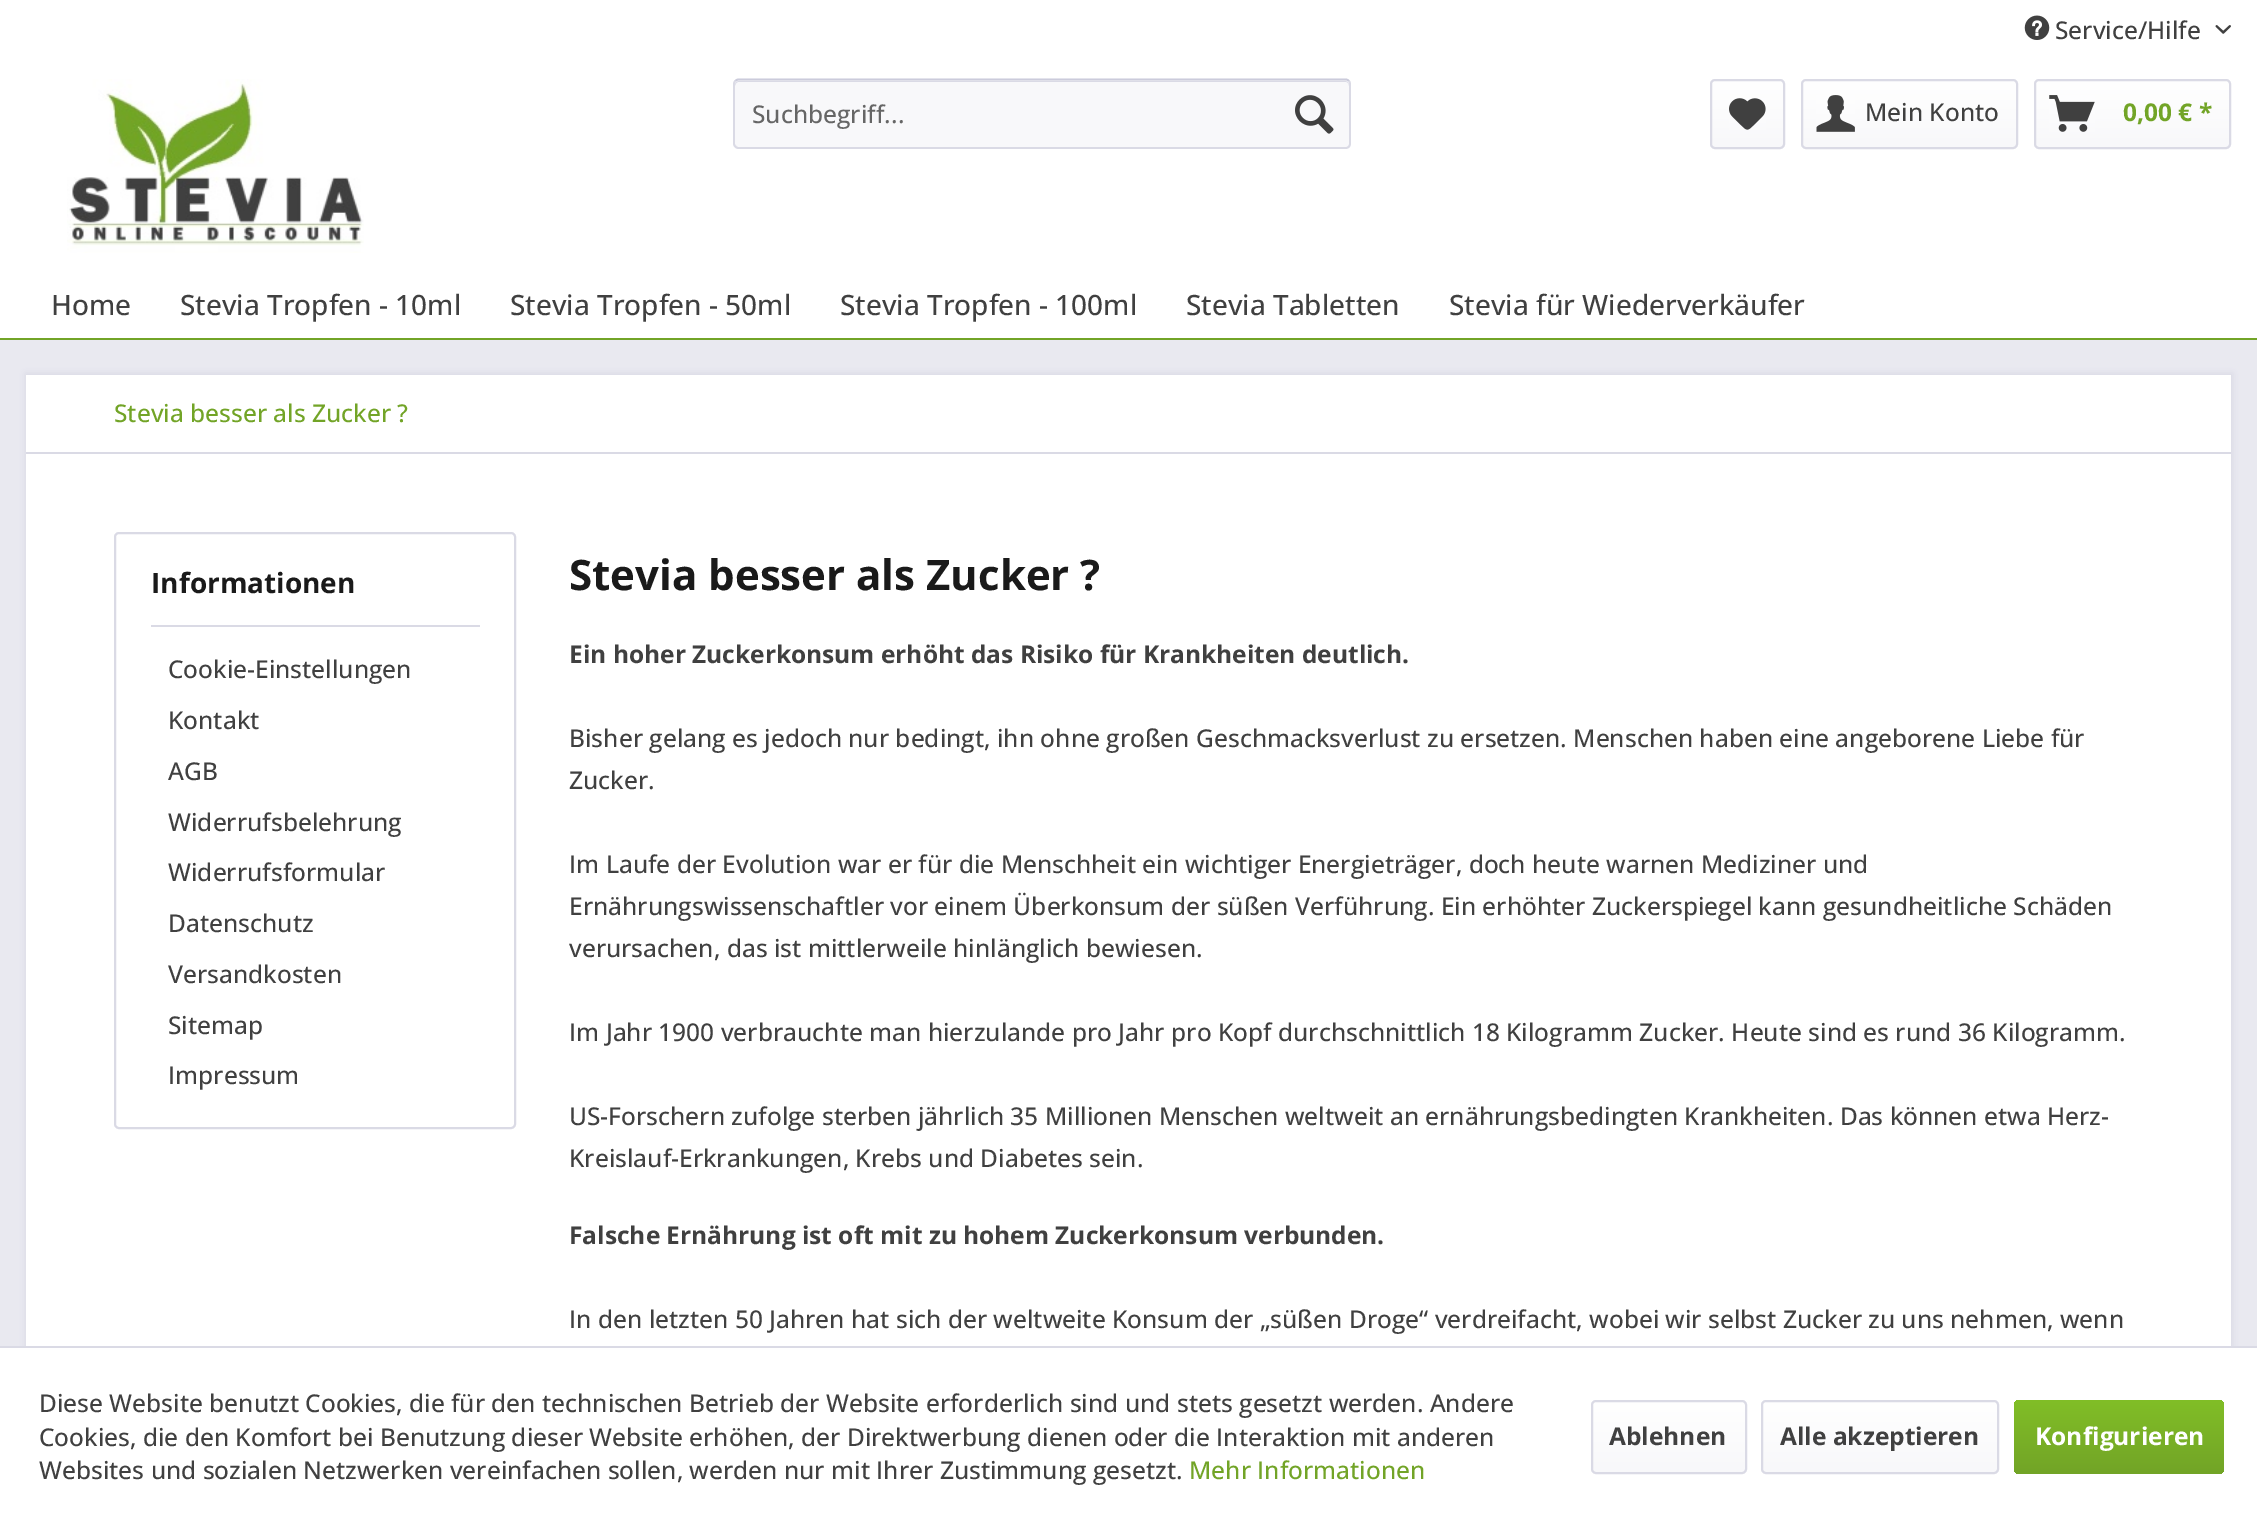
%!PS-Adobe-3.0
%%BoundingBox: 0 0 2257 1523
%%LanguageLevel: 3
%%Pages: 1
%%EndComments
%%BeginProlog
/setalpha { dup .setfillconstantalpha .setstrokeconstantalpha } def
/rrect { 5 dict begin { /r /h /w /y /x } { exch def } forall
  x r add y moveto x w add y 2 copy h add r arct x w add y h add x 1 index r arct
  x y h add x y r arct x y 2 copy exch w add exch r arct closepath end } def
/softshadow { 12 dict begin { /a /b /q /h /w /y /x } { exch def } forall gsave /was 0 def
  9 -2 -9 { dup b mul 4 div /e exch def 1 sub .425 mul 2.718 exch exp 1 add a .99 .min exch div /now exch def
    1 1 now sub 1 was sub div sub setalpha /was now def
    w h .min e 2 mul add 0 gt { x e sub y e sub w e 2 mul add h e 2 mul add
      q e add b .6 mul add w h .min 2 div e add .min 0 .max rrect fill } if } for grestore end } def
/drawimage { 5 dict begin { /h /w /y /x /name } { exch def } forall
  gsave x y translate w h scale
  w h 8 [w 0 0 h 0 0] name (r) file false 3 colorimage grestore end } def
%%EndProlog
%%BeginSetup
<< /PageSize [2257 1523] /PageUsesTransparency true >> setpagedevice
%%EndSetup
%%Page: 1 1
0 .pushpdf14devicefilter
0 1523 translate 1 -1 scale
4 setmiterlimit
0.914 0.914 0.941 setrgbcolor
0 0 2257 1523 rectfill
1 setgray
0 0 2257 338 rectfill
(images/1.raw) 2024 15 26 25 drawimage
(images/2.raw) 2215 25 16 9 drawimage
(images/3.raw) 67 79 297 174 drawimage
0.973 0.973 0.98 setrgbcolor
733 79 618 70 5 rrect fill
0.855 0.855 0.898 setrgbcolor
newpath 738 82 moveto 1346 82 lineto 1348 82 1349 84 1349 86 curveto 1349 85 lineto 1349 83 1347 81 1345 81 curveto 739 81 lineto 737 81 735 83 735 85 curveto 735 86 lineto 735 84 737 82 738 82 curveto closepath fill
0.796 0.796 0.859 setrgbcolor
1.8 setlinewidth
newpath 735.5 81 moveto 736 80 737.5 79.5 738.5 79.5 curveto 1346 79.5 lineto 1347 79.5 1348 80 1349 81 curveto stroke
0.855 0.855 0.898 setrgbcolor
newpath 1349 81 moveto 1349.5 81.5 1350 83 1350 84 curveto 1350 143.5 lineto 1350 144.5 1349.5 146 1349 146.5 curveto 1348 147.5 1347 148 1346 148 curveto 738.5 148 lineto 737.5 148 736 147.5 735.5 146.5 curveto 734.5 146 734 144.5 734 143.5 curveto 734 84 lineto 734 83 734.5 81.5 735.5 81 curveto stroke
(images/4.raw) 1295 95 39 39 drawimage
gsave 1712 81 71 66 4 rrect clip newpath
<< /ShadingType 2 /ColorSpace /DeviceRGB /Coords [1747 81 1747 147] /Extend [true true] /Function << /FunctionType 2 /Domain [0 1] /C0 [1 1 1] /C1 [0.973 0.973 0.98] /N 1 >> >> shfill grestore
2 setlinewidth
1711 80 73 68 4 rrect stroke
(images/5.raw) 1729 98 37 32 drawimage
gsave 1803 81 213 66 4 rrect clip newpath
<< /ShadingType 2 /ColorSpace /DeviceRGB /Coords [1909 80 1909 147] /Extend [true true] /Function << /FunctionType 2 /Domain [0 1] /C0 [1 1 1] /C1 [0.973 0.973 0.98] /N 1 >> >> shfill grestore
1802 80 215 68 4 rrect stroke
(images/6.raw) 1816 95 39 37 drawimage
gsave 2035 81 195 66 4 rrect clip newpath
<< /ShadingType 2 /ColorSpace /DeviceRGB /Coords [2132 80 2132 147] /Extend [true true] /Function << /FunctionType 2 /Domain [0 1] /C0 [1 1 1] /C1 [0.973 0.973 0.98] /N 1 >> >> shfill grestore
2035 80 195 68 4 rrect stroke
(images/7.raw) 2049 95 46 37 drawimage
0.447 0.643 0.153 setrgbcolor
0 338 2257 2 rectfill
0.855 0.855 0.898 setrgbcolor
25 373 2208 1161 0 3.5 1 softshadow
1 setgray
26 375 2205 971 rectfill
0.855 0.855 0.898 setrgbcolor
26 452 2205 2 rectfill
115 533 400 595 4 rrect stroke
151 625 329 2 rectfill
1 setgray
0 1348 2257 175 rectfill
0.855 0.855 0.898 setrgbcolor
0 1346 2257 2 rectfill
gsave 1593 1402 152 70 4 rrect clip newpath
<< /ShadingType 2 /ColorSpace /DeviceRGB /Coords [1669 1402 1669 1472] /Extend [true true] /Function << /FunctionType 2 /Domain [0 1] /C0 [1 1 1] /C1 [0.973 0.973 0.98] /N 1 >> >> shfill grestore
1592 1401 154 72 4 rrect stroke
gsave 1762 1402 235 70 4 rrect clip newpath
<< /ShadingType 2 /ColorSpace /DeviceRGB /Coords [1880 1402 1880 1472] /Extend [true true] /Function << /FunctionType 2 /Domain [0 1] /C0 [1 1 1] /C1 [0.973 0.973 0.98] /N 1 >> >> shfill grestore
1762 1401 236 72 4 rrect stroke
gsave 2014 1400 210 74 5 rrect clip newpath
<< /ShadingType 2 /ColorSpace /DeviceRGB /Coords [2119 1400 2119 1474] /Extend [true true] /Function << /FunctionType 2 /Domain [0 1] /C0 [0.506 0.745 0.149] /C1 [0.447 0.643 0.153] /N 1 >> >> shfill grestore
/OpenSans-Medium [24.5 0 0 -24.5 0 0] selectfont
0.251 setgray
2055 39 moveto (Service/Hilfe) show
0.4 setgray
752 123 moveto (Suchbegriff...) show
0.251 setgray
1865 121 moveto (Mein Konto) show
/OpenSans-Bold [24.5 0 0 -24.5 0 0] selectfont
0.447 0.643 0.153 setrgbcolor
2123 121 moveto (0,00 € *) show
/OpenSans-Medium [28 0 0 -28 0 0] selectfont
0.251 setgray
51 315 moveto (Home) show
180 315 moveto (Stevia Tropfen - 10ml) show
510 315 moveto (Stevia Tropfen - 50ml) show
840 315 moveto (Stevia Tropfen - 100ml) show
1186 315 moveto (Stevia Tabletten) show
1449 315 moveto (Stevia für Wiederverkäufer) show
/OpenSans-Medium [24.5 0 0 -24.5 0 0] selectfont
0.447 0.643 0.153 setrgbcolor
114 422 moveto (Stevia besser als Zucker ?) show
/OpenSans-Bold [28 0 0 -28 0 0] selectfont
0.102 setgray
151 593 moveto (Informationen) show
/OpenSans-Medium [24.5 0 0 -24.5 0 0] selectfont
0.251 setgray
168 678 moveto (Cookie-Einstellungen) show
168 729 moveto (Kontakt) show
168 780 moveto (AGB) show
168 831 moveto (Widerrufsbelehrung) show
168 881 moveto (Widerrufsformular) show
168 932 moveto (Datenschutz) show
168 983 moveto (Versandkosten) show
168 1034 moveto (Sitemap) show
168 1084 moveto (Impressum) show
/OpenSans-Bold [42 0 0 -42 0 0] selectfont
0.102 setgray
569 590 moveto (Stevia besser als Zucker ?) show
/OpenSans-Bold [24.5 0 0 -24.5 0 0] selectfont
0.251 setgray
569 663 moveto (Ein hoher Zuckerkonsum erhöht das Risiko für Krankheiten deutlich.) show
/OpenSans-Medium [24.5 0 0 -24.5 0 0] selectfont
569 747 moveto (Bisher gelang es jedoch nur bedingt, ihn ohne großen Geschmacksverlust zu ersetzen. Menschen haben eine angeborene Liebe für) show
569 789 moveto (Zucker.) show
569 873 moveto (Im Laufe der Evolution war er für die Menschheit ein wichtiger Energieträger, doch heute warnen Mediziner und) show
569 915 moveto (Ernährungswissenschaftler vor einem Überkonsum der süßen Verführung. Ein erhöhter Zuckerspiegel kann gesundheitliche Schäden) show
569 957 moveto (verursachen, das ist mittlerweile hinlänglich bewiesen.) show
569 1041 moveto (Im Jahr 1900 verbrauchte man hierzulande pro Jahr pro Kopf durchschnittlich 18 Kilogramm Zucker. Heute sind es rund 36 Kilogramm.) show
569 1125 moveto (US-Forschern zufolge sterben jährlich 35 Millionen Menschen weltweit an ernährungsbedingten Krankheiten. Das können etwa Herz-) show
569 1167 moveto (Kreislauf-Erkrankungen, Krebs und Diabetes sein.) show
/OpenSans-Bold [24.5 0 0 -24.5 0 0] selectfont
569 1244 moveto (Falsche Ernährung ist oft mit zu hohem Zuckerkonsum verbunden.) show
/OpenSans-Medium [24.5 0 0 -24.5 0 0] selectfont
569 1328 moveto (In den letzten 50 Jahren hat sich der weltweite Konsum der „süßen Droge“ verdreifacht, wobei wir selbst Zucker zu uns nehmen, wenn) show
39 1412 moveto (Diese Website benutzt Cookies, die für den technischen Betrieb der Website erforderlich sind und stets gesetzt werden. Andere) show
39 1446 moveto (Cookies, die den Komfort bei Benutzung dieser Website erhöhen, der Direktwerbung dienen oder die Interaktion mit anderen) show
39 1479 moveto (Websites und sozialen Netzwerken vereinfachen sollen, werden nur mit Ihrer Zustimmung gesetzt.) show
0.447 0.643 0.153 setrgbcolor
1189 1479 moveto (Mehr Informationen) show
/OpenSans-Bold [24.5 0 0 -24.5 0 0] selectfont
0.251 setgray
1609 1445 moveto (Ablehnen) show
1780 1445 moveto (Alle akzeptieren) show
1 setgray
2035 1445 moveto (Konfigurieren) show
.poppdf14devicefilter showpage
%%EOF
